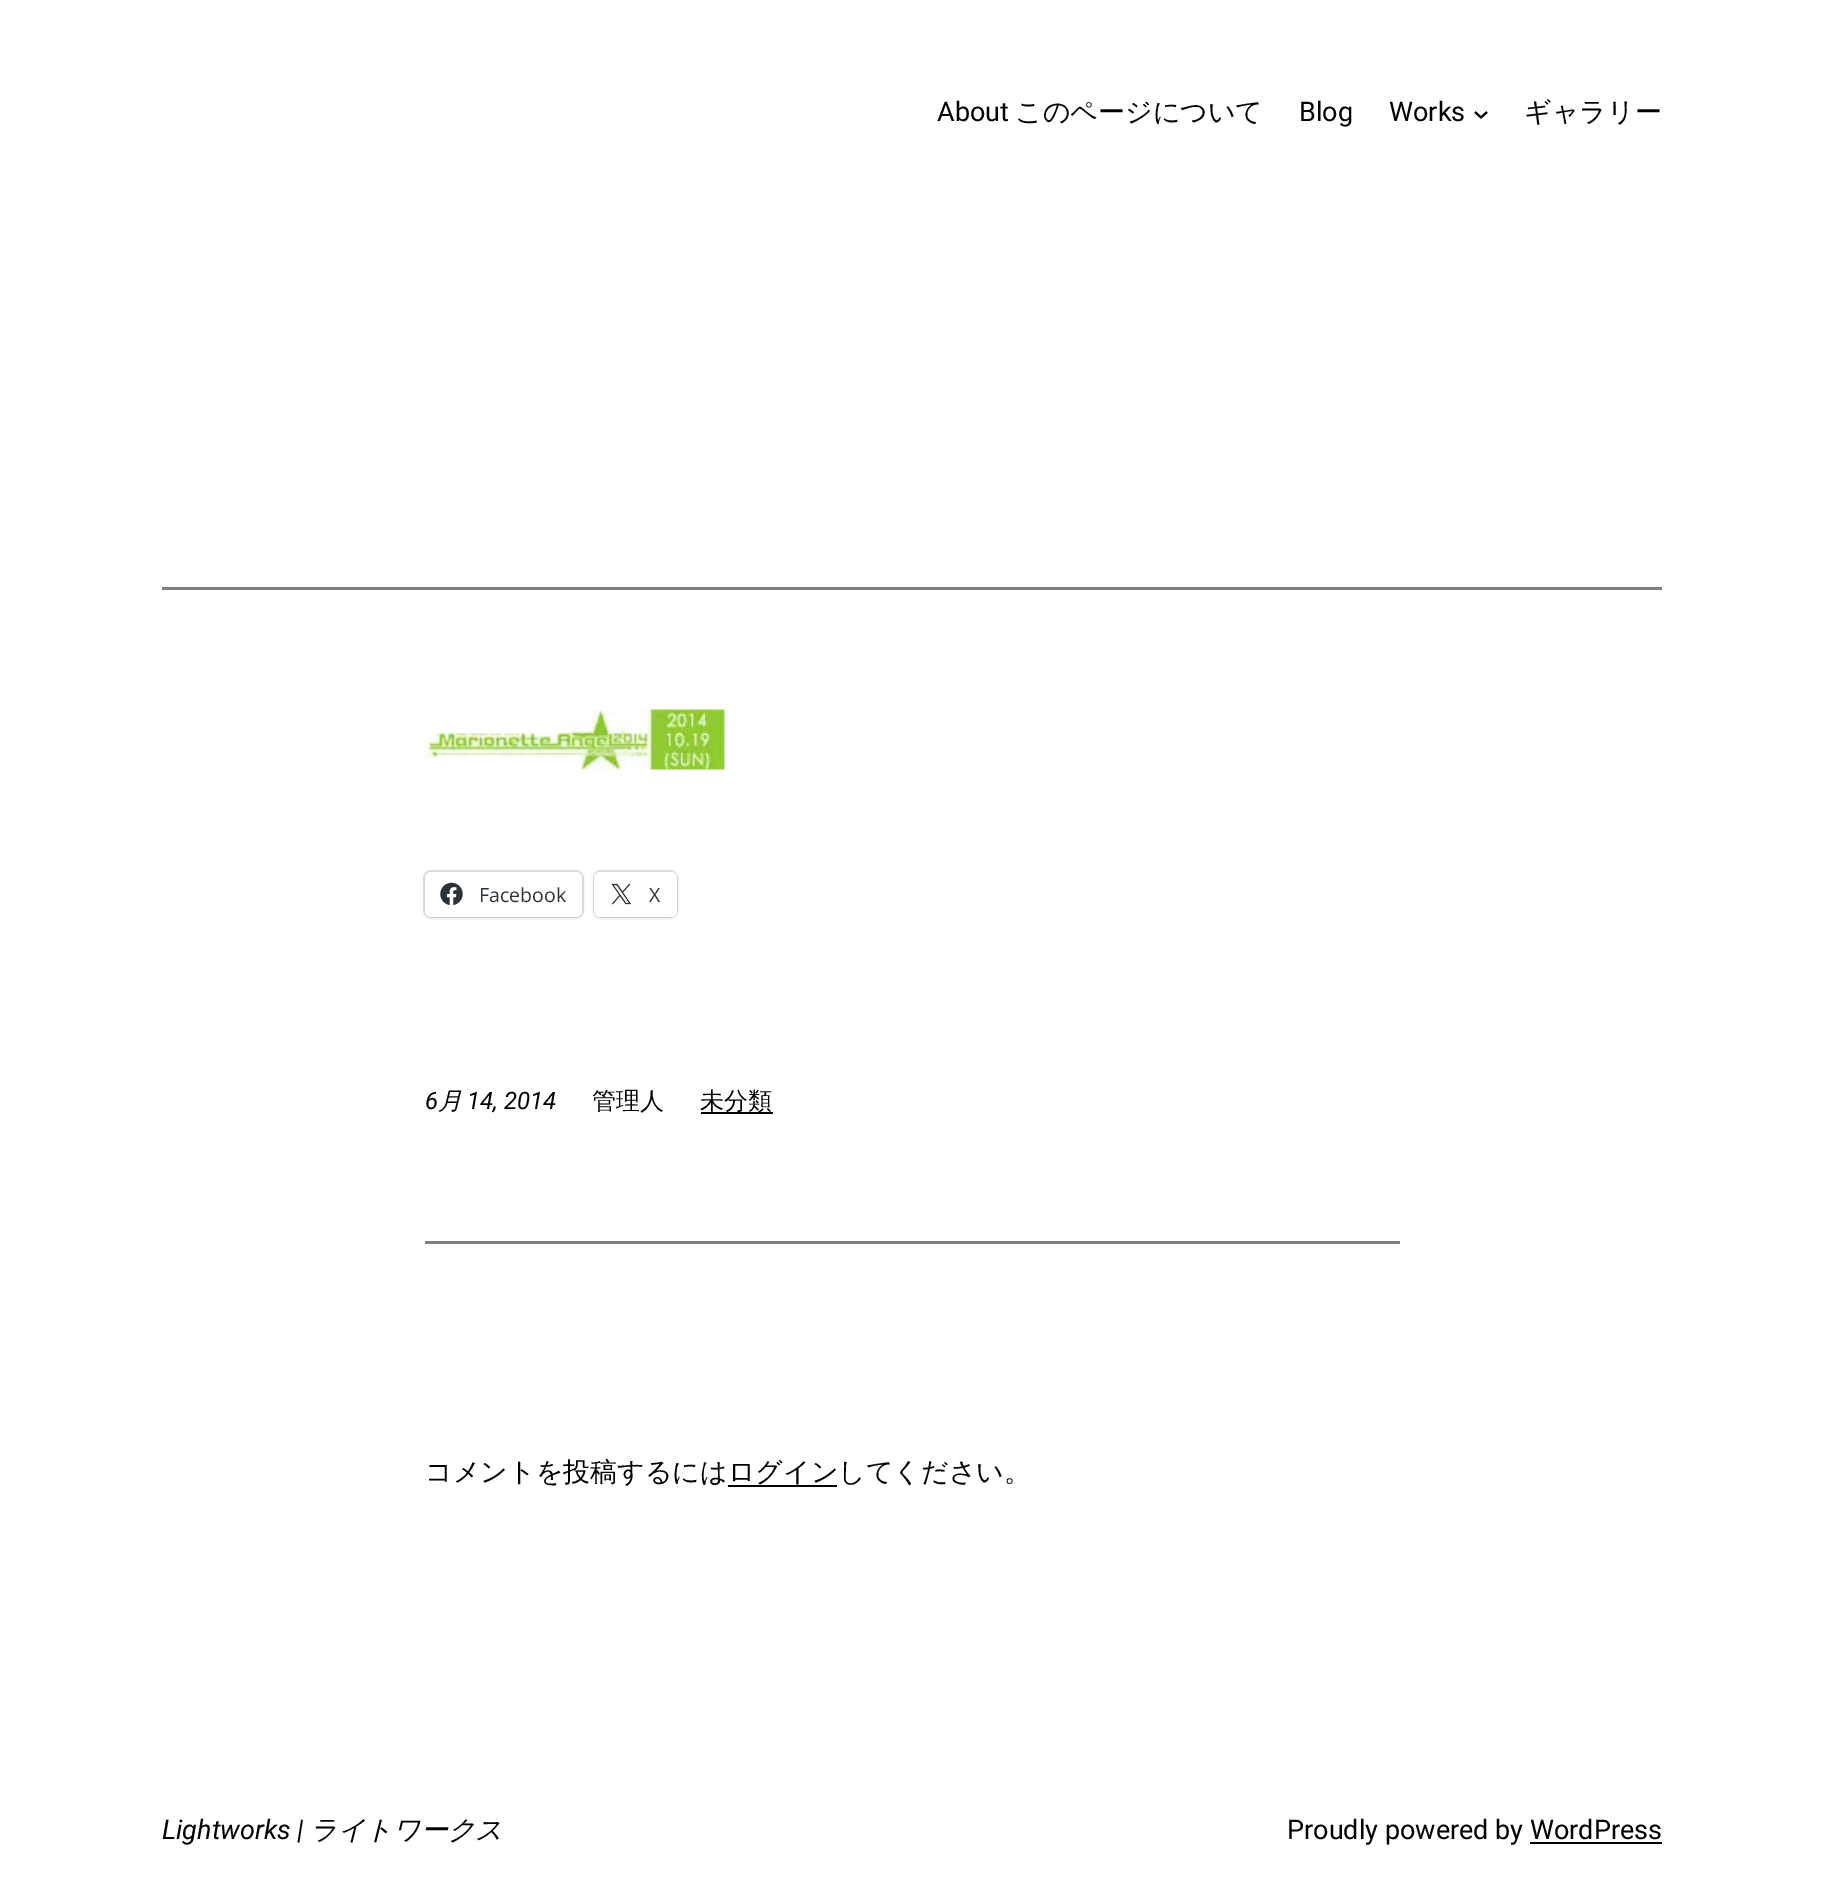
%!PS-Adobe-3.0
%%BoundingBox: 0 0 1823 1892
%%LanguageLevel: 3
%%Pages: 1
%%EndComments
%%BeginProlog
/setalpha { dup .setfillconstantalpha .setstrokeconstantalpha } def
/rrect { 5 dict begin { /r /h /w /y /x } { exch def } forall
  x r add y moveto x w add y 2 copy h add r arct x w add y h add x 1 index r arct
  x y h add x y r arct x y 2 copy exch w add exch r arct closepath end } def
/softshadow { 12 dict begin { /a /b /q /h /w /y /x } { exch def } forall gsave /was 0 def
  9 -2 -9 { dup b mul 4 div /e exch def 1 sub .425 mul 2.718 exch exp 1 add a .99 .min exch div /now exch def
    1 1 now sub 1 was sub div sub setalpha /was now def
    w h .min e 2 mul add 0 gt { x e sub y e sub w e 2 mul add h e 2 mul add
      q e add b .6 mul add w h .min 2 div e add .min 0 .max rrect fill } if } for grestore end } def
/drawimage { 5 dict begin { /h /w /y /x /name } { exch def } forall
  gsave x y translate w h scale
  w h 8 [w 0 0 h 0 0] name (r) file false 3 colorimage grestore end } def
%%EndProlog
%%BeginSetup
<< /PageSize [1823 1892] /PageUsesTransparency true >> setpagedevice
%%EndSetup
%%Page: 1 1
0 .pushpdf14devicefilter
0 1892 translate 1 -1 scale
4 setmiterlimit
1 setgray
0 0 1823 1892 rectfill
0 setgray
2 setlinewidth
newpath 1475 112 moveto 1481 117.5 lineto 1487 112 lineto stroke
0.502 setgray
162 587 1500 3 rectfill
(images/1.raw) 424 709 301 61 drawimage
0.878 setgray
424 871 159 46 7 rrect stroke
0 setgray
425 873 157 45 6 1.5 0.12 softshadow
1 setgray
425 872 157 45 6 rrect fill
(images/2.raw) 440 882 23 24 drawimage
0.878 setgray
594 871 83 46 7 rrect stroke
0 setgray
594 873 83 45 6 1.5 0.12 softshadow
1 setgray
594 872 83 45 6 rrect fill
(images/3.raw) 611 883 21 22 drawimage
0 setgray
701 1112 72 2 rectfill
0.502 setgray
425 1241 975 3 rectfill
0 setgray
728 1485 109 2 rectfill
1530 1842 132 2 rectfill
/Roboto-Regular [27 0 0 -27 0 0] selectfont
937 121 moveto (About) show
/WenQuanYiZenHei-Medium [27 0 0 -27 0 0] selectfont
1015 121 moveto (このページについて) show
/Roboto-Regular [27 0 0 -27 0 0] selectfont
1299 121 moveto (Blog) show
1389 121 moveto (Works) show
/WenQuanYiZenHei-Medium [27 0 0 -27 0 0] selectfont
1524 121 moveto (ギャラリー) show
/OpenSans-Regular [19.5 0 0 -19.5 0 0] selectfont
0.173 0.2 0.22 setrgbcolor
479 902 moveto (Facebook) show
649 902 moveto (X) show
/Roboto-Italic [24 0 0 -24 0 0] selectfont
0 setgray
425 1109 moveto (6) show
/WenQuanYiZenHei-MediumItalic [24 0 0 -24 0 0] selectfont
438 1109 moveto (月) show
/Roboto-Italic [24 0 0 -24 0 0] selectfont
467 1109 moveto (14, 2014) show
/WenQuanYiZenHei-Medium [24 0 0 -24 0 0] selectfont
592 1109 moveto (管理人) show
700 1109 moveto (未分類) show
/WenQuanYiZenHei-Medium [27 0 0 -27 0 0] selectfont
425 1481 moveto (コメントを投稿するにはログインしてください。) show
/Roboto-Italic [27 0 0 -27 0 0] selectfont
162 1839 moveto (Lightworks |) show
/WenQuanYiZenHei-MediumItalic [27 0 0 -27 0 0] selectfont
310 1839 moveto (ライトワークス) show
/Roboto-Regular [27 0 0 -27 0 0] selectfont
1287 1839 moveto (Proudly powered by WordPress) show
.poppdf14devicefilter showpage
%%EOF
